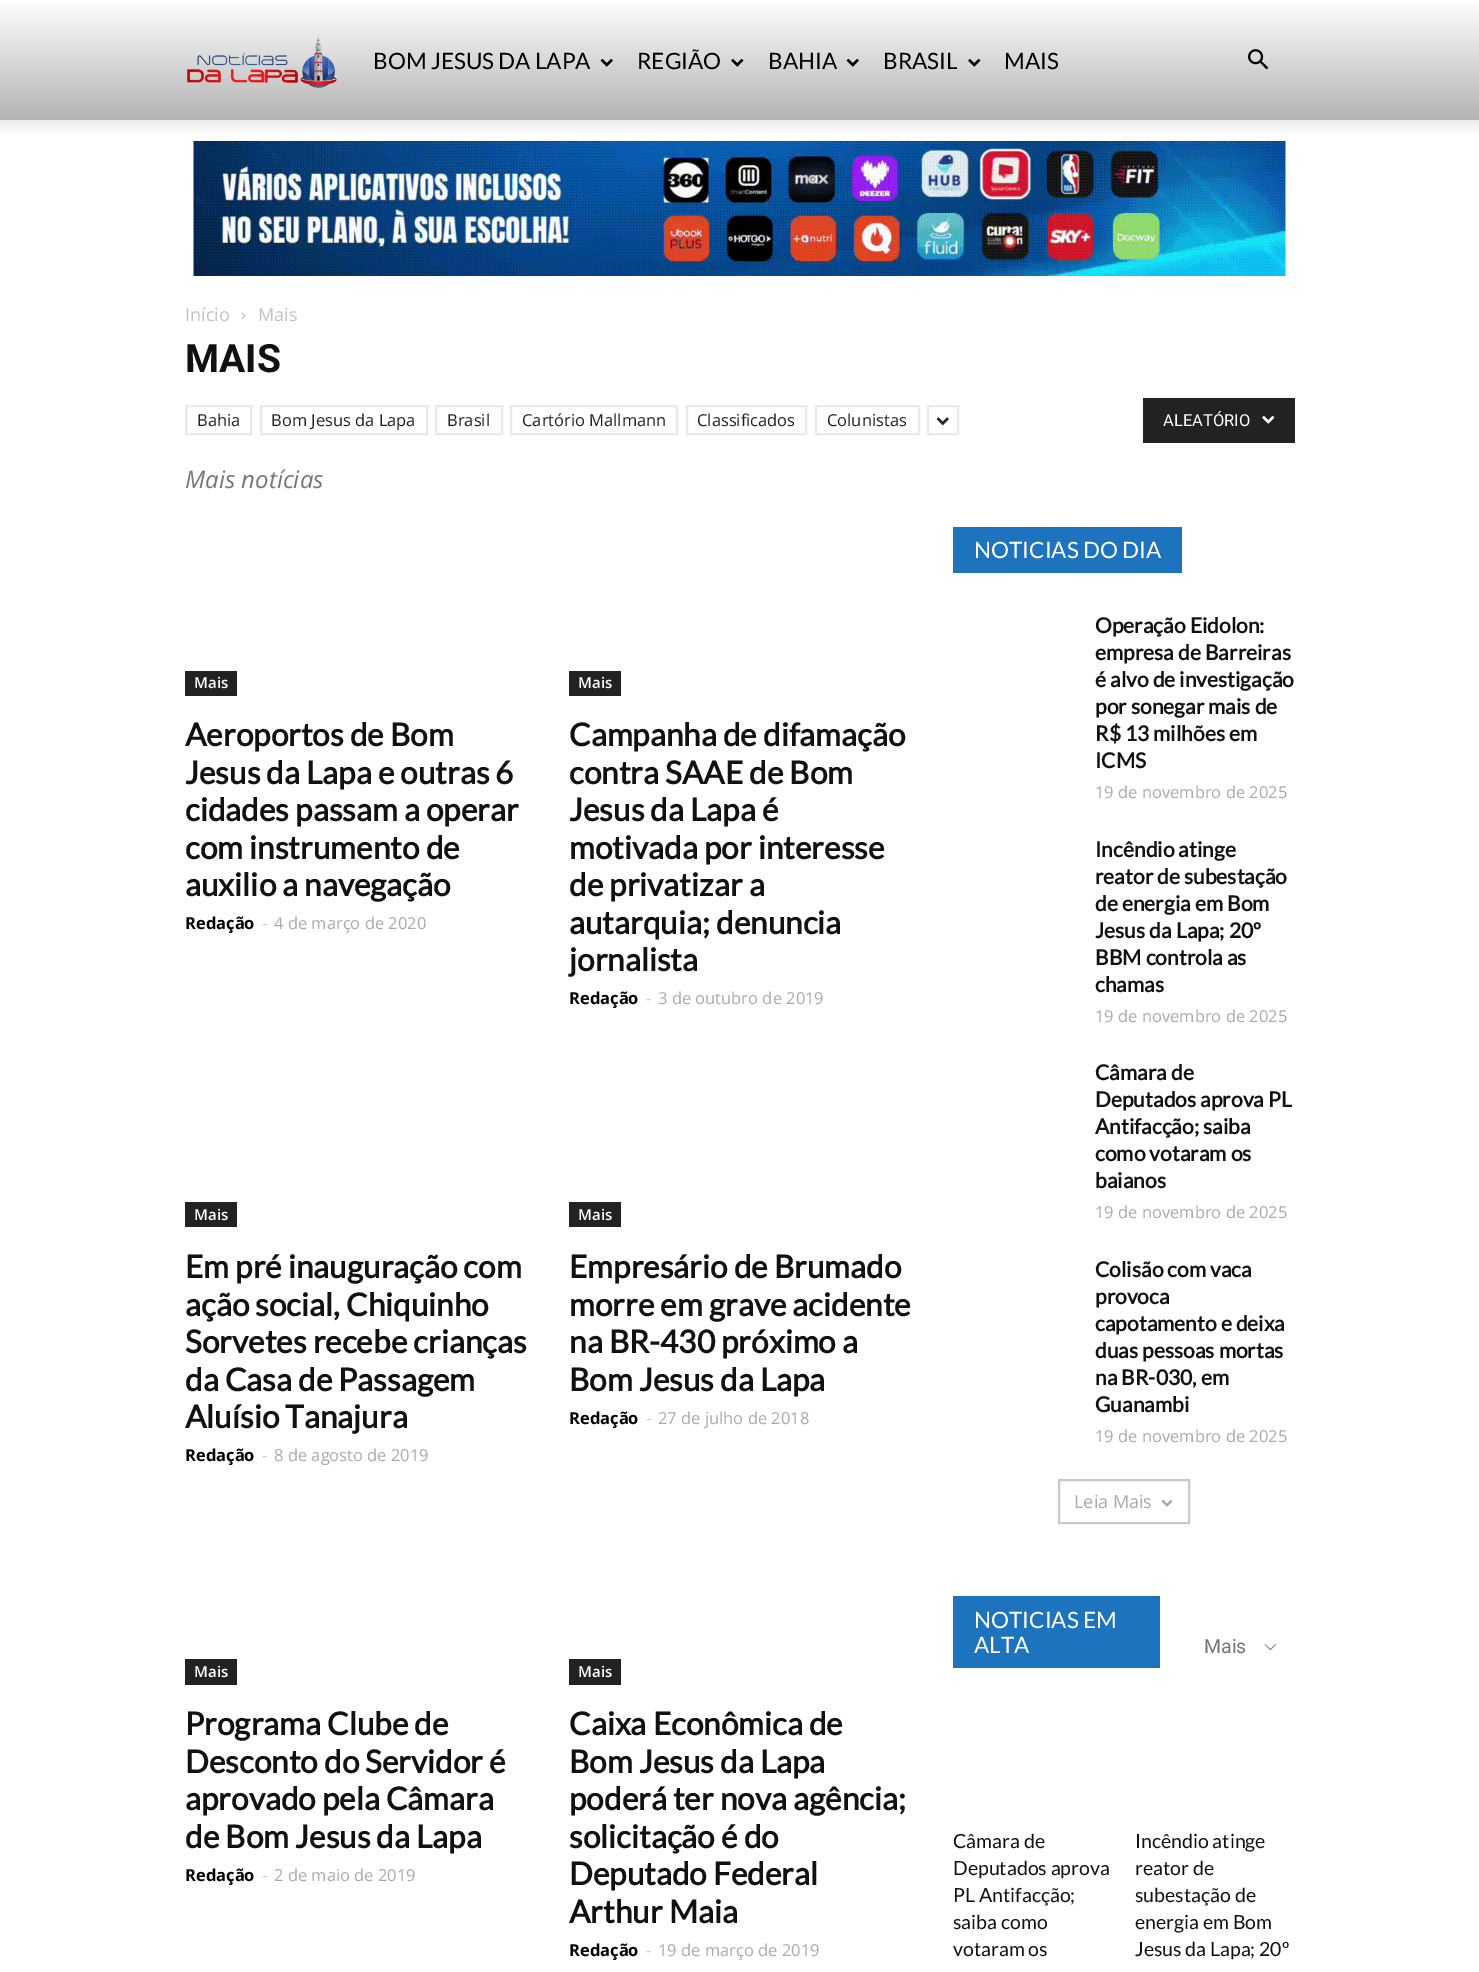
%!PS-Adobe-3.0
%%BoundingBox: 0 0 1479 1972
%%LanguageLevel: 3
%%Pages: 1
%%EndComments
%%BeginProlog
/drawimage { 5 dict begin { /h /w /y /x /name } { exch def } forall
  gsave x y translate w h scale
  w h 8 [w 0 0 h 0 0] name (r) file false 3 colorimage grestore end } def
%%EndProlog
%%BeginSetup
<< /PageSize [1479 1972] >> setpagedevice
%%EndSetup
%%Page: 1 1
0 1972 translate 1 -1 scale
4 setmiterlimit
1 setgray
0 0 1479 1972 rectfill
gsave newpath 0 4 moveto 1479 4 lineto 1479 120 lineto 0 120 lineto closepath clip newpath
<< /ShadingType 2 /ColorSpace /DeviceRGB /Coords [740 0 740 120] /Extend [true true] /Function << /FunctionType 2 /Domain [0 1] /C0 [1 1 1] /C1 [0.702 0.702 0.702] /N 1 >> >> shfill grestore
(images/1.raw) 186 35 151 53 drawimage
(images/2.raw) 600 58 13 9 drawimage
(images/3.raw) 731 58 13 9 drawimage
(images/2.raw) 846 58 13 9 drawimage
(images/3.raw) 968 58 13 9 drawimage
(images/4.raw) 1248 49 20 21 drawimage
(images/5.raw) 0 120 1479 13 drawimage
(images/6.raw) 193 141 1093 135 drawimage
(images/7.raw) 241 312 5 8 drawimage
0.918 setgray
2 setlinewidth
186 406 65 28 rectstroke
261 406 166 28 rectstroke
436 406 66 28 rectstroke
511 406 166 28 rectstroke
687 406 119 28 rectstroke
816 406 103 28 rectstroke
928 406 30 28 rectstroke
(images/8.raw) 936 417 13 9 drawimage
0.133 setgray
1143 398 152 45 rectfill
(images/9.raw) 1262 415 13 9 drawimage
185 671 52 25 rectfill
569 671 52 25 rectfill
185 1202 52 25 rectfill
569 1202 52 25 rectfill
185 1659 52 26 rectfill
569 1659 52 26 rectfill
0.118 0.451 0.745 setrgbcolor
953 527 229 46 rectfill
0.788 setgray
1059 1480 130 43 rectstroke
(images/10.raw) 1161 1499 12 8 drawimage
0.118 0.451 0.745 setrgbcolor
953 1596 207 72 rectfill
(images/11.raw) 1264 1644 13 7 drawimage
/Lato-Regular [22.5 0 0 -22.5 0 0] selectfont
0 setgray
373 69 moveto (BOM JESUS DA LAPA) show
637 69 moveto (REGIÃO) show
768 69 moveto (BAHIA) show
883 69 moveto (BRASIL) show
1004 69 moveto (MAIS) show
/OpenSans-Regular [18 0 0 -18 0 0] selectfont
0.765 setgray
185 321 moveto (Início) show
258 321 moveto (Mais) show
/Roboto-Bold [39 0 0 -39 0 0] selectfont
0.067 setgray
185 372 moveto (MAIS) show
/OpenSans-Regular [16.5 0 0 -16.5 0 0] selectfont
0.133 setgray
197 426 moveto (Bahia) show
271 426 moveto (Bom Jesus da Lapa) show
447 426 moveto (Brasil) show
522 426 moveto (Cartório Mallmann) show
697 426 moveto (Classificados) show
827 426 moveto (Colunistas) show
/OpenSans-Italic [24 0 0 -24 0 0] selectfont
0.467 setgray
185 488 moveto (Mais notícias) show
/Roboto-Regular [16.5 0 0 -16.5 0 0] selectfont
1 setgray
1163 426 moveto (ALEATÓRIO) show
/OpenSans-SemiBold [15 0 0 -15 0 0] selectfont
194 688 moveto (Mais) show
/Lato-Bold [31.5 0 0 -31.5 0 0] selectfont
0.067 setgray
185 746 moveto (Aeroportos de Bom) show
185 784 moveto (Jesus da Lapa e outras 6) show
185 821 moveto (cidades passam a operar) show
185 859 moveto (com instrumento de) show
185 896 moveto (auxilio a navegação) show
/OpenSans-Bold [16.5 0 0 -16.5 0 0] selectfont
0 setgray
185 929 moveto (Redação) show
/OpenSans-Regular [16.5 0 0 -16.5 0 0] selectfont
0.8 setgray
262 929 moveto (-) show
0.667 setgray
274 929 moveto (4 de março de 2020) show
/OpenSans-SemiBold [15 0 0 -15 0 0] selectfont
1 setgray
578 688 moveto (Mais) show
/Lato-Bold [31.5 0 0 -31.5 0 0] selectfont
0.067 setgray
569 746 moveto (Campanha de difamação) show
569 784 moveto (contra SAAE de Bom) show
569 821 moveto (Jesus da Lapa é) show
569 859 moveto (motivada por interesse) show
569 896 moveto (de privatizar a) show
569 934 moveto (autarquia; denuncia) show
569 971 moveto (jornalista) show
/OpenSans-Bold [16.5 0 0 -16.5 0 0] selectfont
0 setgray
569 1004 moveto (Redação) show
/OpenSans-Regular [16.5 0 0 -16.5 0 0] selectfont
0.8 setgray
646 1004 moveto (-) show
0.667 setgray
658 1004 moveto (3 de outubro de 2019) show
/OpenSans-SemiBold [15 0 0 -15 0 0] selectfont
1 setgray
194 1220 moveto (Mais) show
/Lato-Bold [31.5 0 0 -31.5 0 0] selectfont
0.067 setgray
185 1278 moveto (Em pré inauguração com) show
185 1316 moveto (ação social, Chiquinho) show
185 1353 moveto (Sorvetes recebe crianças) show
185 1391 moveto (da Casa de Passagem) show
185 1428 moveto (Aluísio Tanajura) show
/OpenSans-Bold [16.5 0 0 -16.5 0 0] selectfont
0 setgray
185 1461 moveto (Redação) show
/OpenSans-Regular [16.5 0 0 -16.5 0 0] selectfont
0.8 setgray
262 1461 moveto (-) show
0.667 setgray
274 1461 moveto (8 de agosto de 2019) show
/OpenSans-SemiBold [15 0 0 -15 0 0] selectfont
1 setgray
578 1220 moveto (Mais) show
/Lato-Bold [31.5 0 0 -31.5 0 0] selectfont
0.067 setgray
569 1278 moveto (Empresário de Brumado) show
569 1316 moveto (morre em grave acidente) show
569 1353 moveto (na BR-430 próximo a) show
569 1391 moveto (Bom Jesus da Lapa) show
/OpenSans-Bold [16.5 0 0 -16.5 0 0] selectfont
0 setgray
569 1424 moveto (Redação) show
/OpenSans-Regular [16.5 0 0 -16.5 0 0] selectfont
0.8 setgray
646 1424 moveto (-) show
0.667 setgray
658 1424 moveto (27 de julho de 2018) show
/OpenSans-SemiBold [15 0 0 -15 0 0] selectfont
1 setgray
194 1677 moveto (Mais) show
/Lato-Bold [31.5 0 0 -31.5 0 0] selectfont
0.067 setgray
185 1735 moveto (Programa Clube de) show
185 1773 moveto (Desconto do Servidor é) show
185 1810 moveto (aprovado pela Câmara) show
185 1848 moveto (de Bom Jesus da Lapa) show
/OpenSans-Bold [16.5 0 0 -16.5 0 0] selectfont
0 setgray
185 1881 moveto (Redação) show
/OpenSans-Regular [16.5 0 0 -16.5 0 0] selectfont
0.8 setgray
262 1881 moveto (-) show
0.667 setgray
274 1881 moveto (2 de maio de 2019) show
/OpenSans-SemiBold [15 0 0 -15 0 0] selectfont
1 setgray
578 1677 moveto (Mais) show
/Lato-Bold [31.5 0 0 -31.5 0 0] selectfont
0.067 setgray
569 1735 moveto (Caixa Econômica de) show
569 1773 moveto (Bom Jesus da Lapa) show
569 1810 moveto (poderá ter nova agência;) show
569 1848 moveto (solicitação é do) show
569 1885 moveto (Deputado Federal) show
569 1923 moveto (Arthur Maia) show
/OpenSans-Bold [16.5 0 0 -16.5 0 0] selectfont
0 setgray
569 1956 moveto (Redação) show
/OpenSans-Regular [16.5 0 0 -16.5 0 0] selectfont
0.8 setgray
646 1956 moveto (-) show
0.667 setgray
658 1956 moveto (19 de março de 2019) show
/Lato-Regular [22.5 0 0 -22.5 0 0] selectfont
1 setgray
974 558 moveto (NOTICIAS DO DIA) show
/Lato-Bold [21 0 0 -21 0 0] selectfont
0.067 setgray
1095 633 moveto (Operação Eidolon:) show
1095 660 moveto (empresa de Barreiras) show
1095 687 moveto (é alvo de investigação) show
1095 714 moveto (por sonegar mais de) show
1095 741 moveto (R$ 13 milhões em) show
1095 768 moveto (ICMS) show
/OpenSans-Regular [16.5 0 0 -16.5 0 0] selectfont
0.667 setgray
1095 798 moveto (19 de novembro de 2025) show
/Lato-Bold [21 0 0 -21 0 0] selectfont
0.067 setgray
1095 857 moveto (Incêndio atinge) show
1095 884 moveto (reator de subestação) show
1095 911 moveto (de energia em Bom) show
1095 938 moveto (Jesus da Lapa; 20º) show
1095 965 moveto (BBM controla as) show
1095 992 moveto (chamas) show
/OpenSans-Regular [16.5 0 0 -16.5 0 0] selectfont
0.667 setgray
1095 1022 moveto (19 de novembro de 2025) show
/Lato-Bold [21 0 0 -21 0 0] selectfont
0.067 setgray
1095 1080 moveto (Câmara de) show
1095 1107 moveto (Deputados aprova PL) show
1095 1134 moveto (Antifacção; saiba) show
1095 1161 moveto (como votaram os) show
1095 1188 moveto (baianos) show
/OpenSans-Regular [16.5 0 0 -16.5 0 0] selectfont
0.667 setgray
1095 1218 moveto (19 de novembro de 2025) show
/Lato-Bold [21 0 0 -21 0 0] selectfont
0.067 setgray
1095 1277 moveto (Colisão com vaca) show
1095 1304 moveto (provoca) show
1095 1331 moveto (capotamento e deixa) show
1095 1358 moveto (duas pessoas mortas) show
1095 1385 moveto (na BR-030, em) show
1095 1412 moveto (Guanambi) show
/OpenSans-Regular [16.5 0 0 -16.5 0 0] selectfont
0.667 setgray
1095 1442 moveto (19 de novembro de 2025) show
/OpenSans-Regular [18 0 0 -18 0 0] selectfont
1074 1508 moveto (Leia Mais) show
/Lato-Regular [22.5 0 0 -22.5 0 0] selectfont
1 setgray
974 1628 moveto (NOTICIAS EM) show
974 1653 moveto (ALTA) show
/Roboto-Regular [19.5 0 0 -19.5 0 0] selectfont
0.467 setgray
1204 1653 moveto (Mais) show
/Lato-Regular [19.5 0 0 -19.5 0 0] selectfont
0.067 setgray
953 1848 moveto (Câmara de) show
953 1875 moveto (Deputados aprova) show
953 1902 moveto (PL Antifacção;) show
953 1929 moveto (saiba como) show
953 1956 moveto (votaram os) show
1135 1848 moveto (Incêndio atinge) show
1135 1875 moveto (reator de) show
1135 1902 moveto (subestação de) show
1135 1929 moveto (energia em Bom) show
1135 1956 moveto (Jesus da Lapa; 20º) show
showpage
%%EOF
